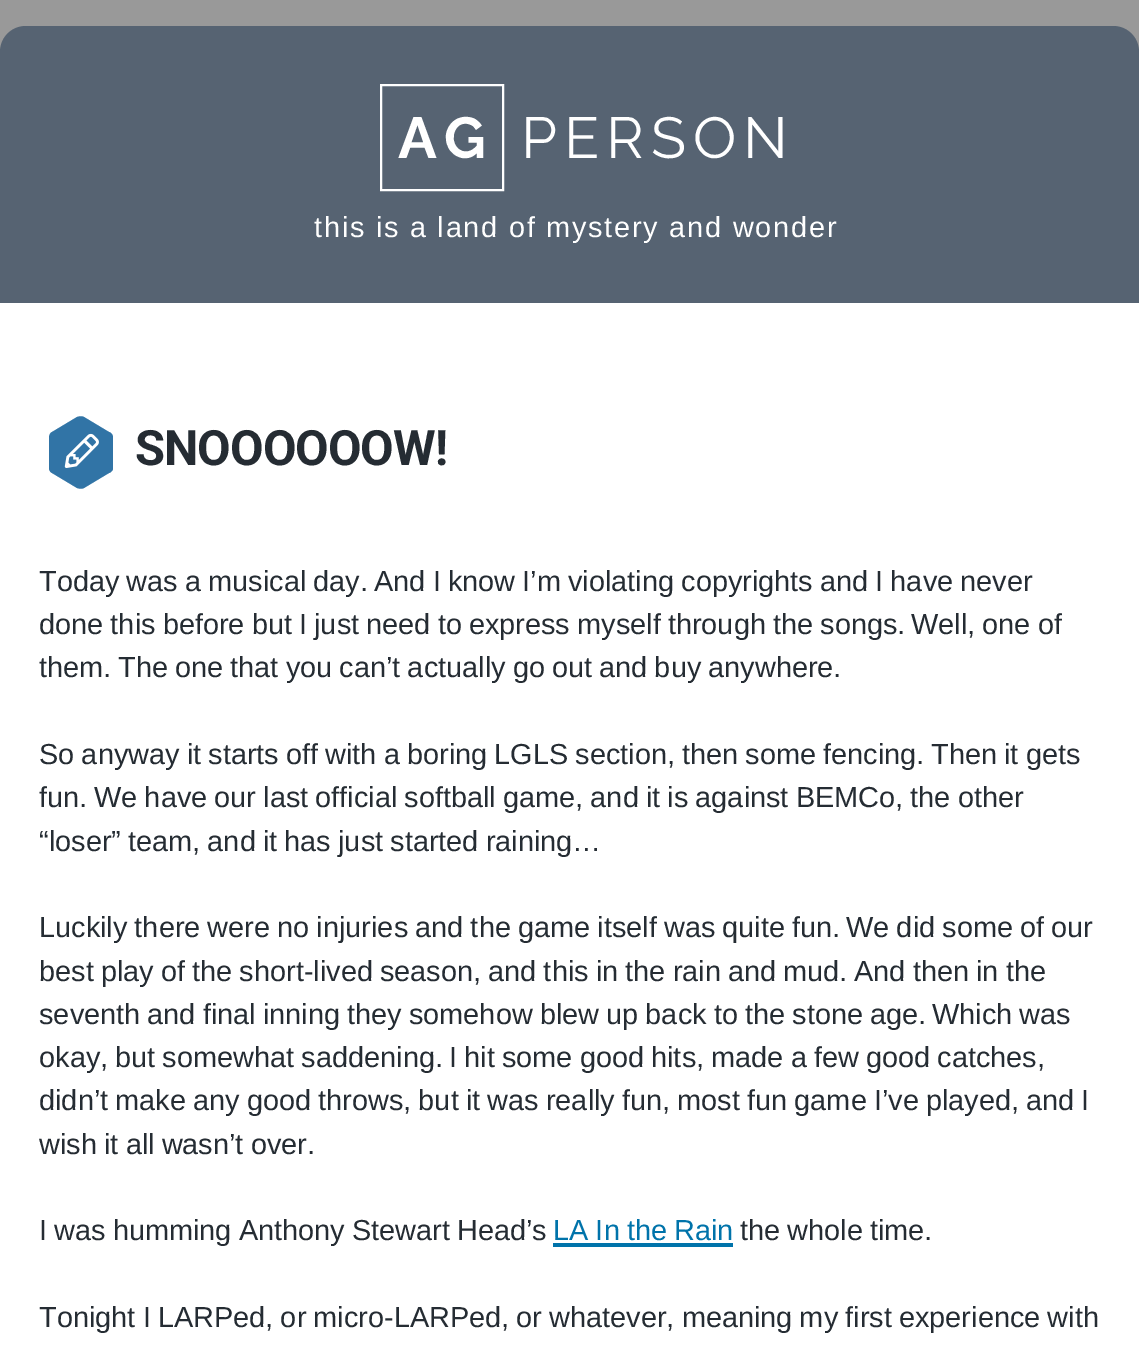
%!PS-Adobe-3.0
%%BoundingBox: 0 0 1139 1356
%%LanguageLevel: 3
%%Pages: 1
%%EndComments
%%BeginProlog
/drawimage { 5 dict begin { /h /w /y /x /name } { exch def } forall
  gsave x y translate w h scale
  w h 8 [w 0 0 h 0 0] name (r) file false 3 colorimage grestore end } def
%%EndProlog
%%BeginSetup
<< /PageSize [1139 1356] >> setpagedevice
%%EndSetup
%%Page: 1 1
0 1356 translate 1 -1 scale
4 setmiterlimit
1 setgray
0 0 1139 1356 rectfill
0.6 setgray
0 0 1139 52 rectfill
0.337 0.388 0.447 setrgbcolor
newpath 26 26 moveto 1113 26 lineto 1127.5 26 1139 37.5 1139 52 curveto 1139 303 lineto 0 303 lineto 0 52 lineto 0 37.5 11.5 26 26 26 curveto closepath fill
1 setgray
2 setlinewidth
381 85 122 105 rectstroke
0.192 0.455 0.651 setrgbcolor
newpath 109 473 moveto 84 488 lineto 82 489 80 489 77 488 curveto 52 473 lineto 50 472 49 470 49 468 curveto 49 438 lineto 49 435 50 433 52 432 curveto 77 417 lineto 80 416 82 416 84 417 curveto 109 432 lineto 112 433 113 435 113 438 curveto 113 468 lineto 113 470 112 472 109 473 curveto closepath fill
(images/1.raw) 64 433 35 35 drawimage
0 0.451 0.667 setrgbcolor
553 1243 180 4 rectfill
/Raleway-Bold [57.75 0 0 -57.75 0 0] selectfont
1 setgray
398 158 moveto 7 0 (AG) ashow
/Raleway-Regular [57.75 0 0 -57.75 0 0] selectfont
521 158 moveto 7 0 (PERSON) ashow
/LiberationSans-Regular [28.9 0 0 -28.9 0 0] selectfont
314 237 moveto 1.75 0 (this is a land of mystery and wonder) ashow
/Roboto-Bold [48.75 0 0 -48.75 0 0] selectfont
0.145 0.173 0.2 setrgbcolor
135 465 moveto -1 0 (SNOOOOOOW!) ashow
/LiberationSans-Regular [28.9 0 0 -28.9 0 0] selectfont
39 591 moveto -0.9 0 32 (Today was a musical day.) widthshow
374 591 moveto -0.9 0 32 (And I know I’m violating copyrights and I have never) widthshow
39 634 moveto -0.9 0 32 (done this before but I just need to express myself through the songs.) widthshow
911 634 moveto -0.9 0 32 (Well, one of) widthshow
39 677 moveto (them.) show
118 677 moveto -0.9 0 32 (The one that you can’t actually go out and buy anywhere.) widthshow
39 764 moveto -0.9 0 32 (So anyway it starts off with a boring LGLS section, then some fencing.) widthshow
931 764 moveto -0.9 0 32 (Then it gets) widthshow
39 807 moveto (fun.) show
94 807 moveto -0.9 0 32 (We have our last official softball game, and it is against BEMCo, the other) widthshow
39 851 moveto -0.9 0 32 (“loser” team, and it has just started raining…) widthshow
39 937 moveto -0.9 0 32 (Luckily there were no injuries and the game itself was quite fun.) widthshow
846 937 moveto -0.9 0 32 (We did some of our) widthshow
39 981 moveto -0.9 0 32 (best play of the short-lived season, and this in the rain and mud.) widthshow
854 981 moveto -0.9 0 32 (And then in the) widthshow
39 1024 moveto -0.9 0 32 (seventh and final inning they somehow blew up back to the stone age.) widthshow
932 1024 moveto -0.9 0 32 (Which was) widthshow
39 1067 moveto -0.9 0 32 (okay, but somewhat saddening.) widthshow
449 1067 moveto -0.9 0 32 (I hit some good hits, made a few good catches,) widthshow
39 1110 moveto -0.9 0 32 (didn’t make any good throws, but it was really fun, most fun game I’ve played, and I) widthshow
39 1154 moveto -0.9 0 32 (wish it all wasn’t over.) widthshow
39 1240 moveto -0.9 0 32 (I was humming Anthony Stewart Head’s) widthshow
0 0.451 0.667 setrgbcolor
553 1240 moveto -0.9 0 32 (LA In the Rain) widthshow
0.145 0.173 0.2 setrgbcolor
740 1240 moveto -1 0 32 (the whole time.) widthshow
39 1327 moveto -0.9 0 32 (Tonight I LARPed, or micro-LARPed, or whatever, meaning my first experience with) widthshow
showpage
%%EOF
